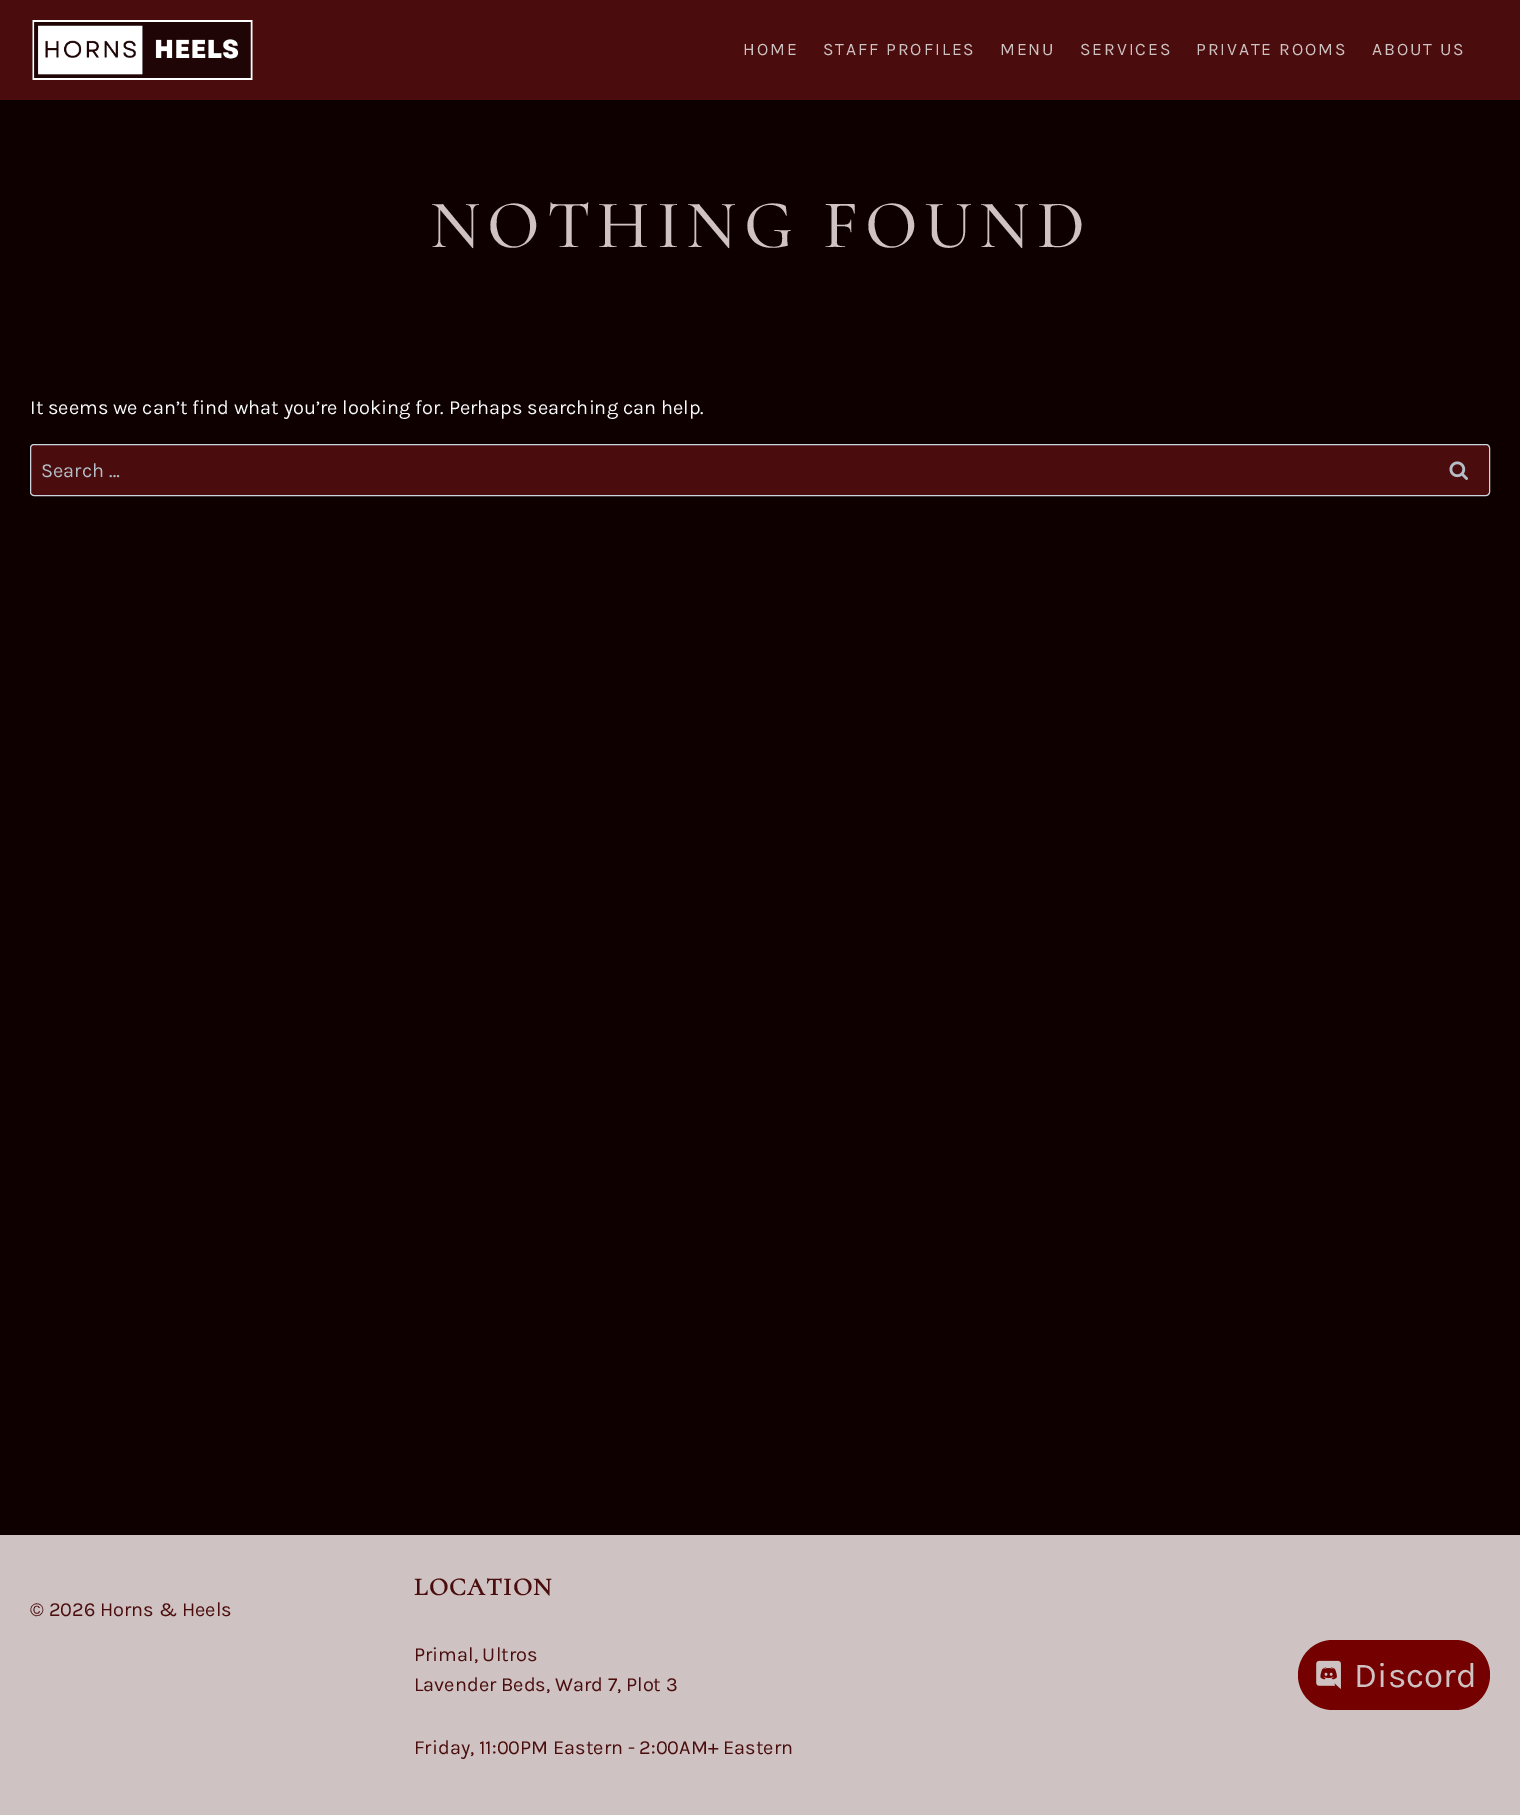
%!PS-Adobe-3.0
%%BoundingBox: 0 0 1520 1815
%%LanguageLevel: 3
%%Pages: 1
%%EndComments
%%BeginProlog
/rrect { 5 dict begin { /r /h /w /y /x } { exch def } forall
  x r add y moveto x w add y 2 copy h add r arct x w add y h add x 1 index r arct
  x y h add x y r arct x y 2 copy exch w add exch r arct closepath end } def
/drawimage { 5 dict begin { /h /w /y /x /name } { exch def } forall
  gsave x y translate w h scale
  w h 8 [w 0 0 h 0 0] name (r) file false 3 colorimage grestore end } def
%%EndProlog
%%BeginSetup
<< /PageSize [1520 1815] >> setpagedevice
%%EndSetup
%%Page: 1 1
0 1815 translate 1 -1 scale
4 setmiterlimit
0.059 0 0 setrgbcolor
0 0 1520 1815 rectfill
0.29 0.047 0.047 setrgbcolor
0 0 1520 100 rectfill
(images/1.raw) 32 20 221 60 drawimage
30.5 444.5 1459 51 3.5 rrect gsave fill grestore
0.796 0.835 0.878 setrgbcolor
stroke
(images/2.raw) 1449 461 19 19 drawimage
0.808 0.761 0.761 setrgbcolor
0 1535 1520 280 rectfill
0.455 0 0 setrgbcolor
1298 1640 192 70 35 rrect fill
(images/3.raw) 1316 1660 25 29 drawimage
/Karla-Regular [17.5 0 0 -17.5 0 0] selectfont
0.808 0.761 0.761 setrgbcolor
743 55 moveto 1.9 0 (HOME) ashow
823 55 moveto 1.9 0 (STAFF PROFILES) ashow
1000 55 moveto 1.9 0 (MENU) ashow
1080 55 moveto 1.9 0 (SERVICES) ashow
1196 55 moveto 1.9 0 (PRIVATE ROOMS) ashow
1372 55 moveto 1.9 0 (ABOUT US) ashow
/Cormorant-Medium [68.75 0 0 -68.75 0 0] selectfont
430 247 moveto 6.9 0 (NOTHING FOUND) ashow
/Karla-Regular [20 0 0 -20 0 0] selectfont
0.969 0.98 0.988 setrgbcolor
30 414 moveto (It seems we can’t find what you’re looking for. Perhaps searching can help.) show
0.706 0.745 0.784 setrgbcolor
41 477 moveto (Search …) show
0.29 0.047 0.047 setrgbcolor
30 1616 moveto (© 2026 Horns & Heels) show
/Cormorant-Bold [25 0 0 -25 0 0] selectfont
414 1595 moveto 1.25 0 (LOCATION) ashow
/Karla-Regular [20 0 0 -20 0 0] selectfont
414 1661 moveto (Primal, Ultros) show
414 1691 moveto (Lavender Beds, Ward 7, Plot 3) show
414 1754 moveto (Friday, 11:00PM Eastern - 2:00AM+ Eastern) show
/Karla-Regular [35 0 0 -35 0 0] selectfont
0.808 0.761 0.761 setrgbcolor
1354 1687 moveto (Discord) show
showpage
%%EOF
